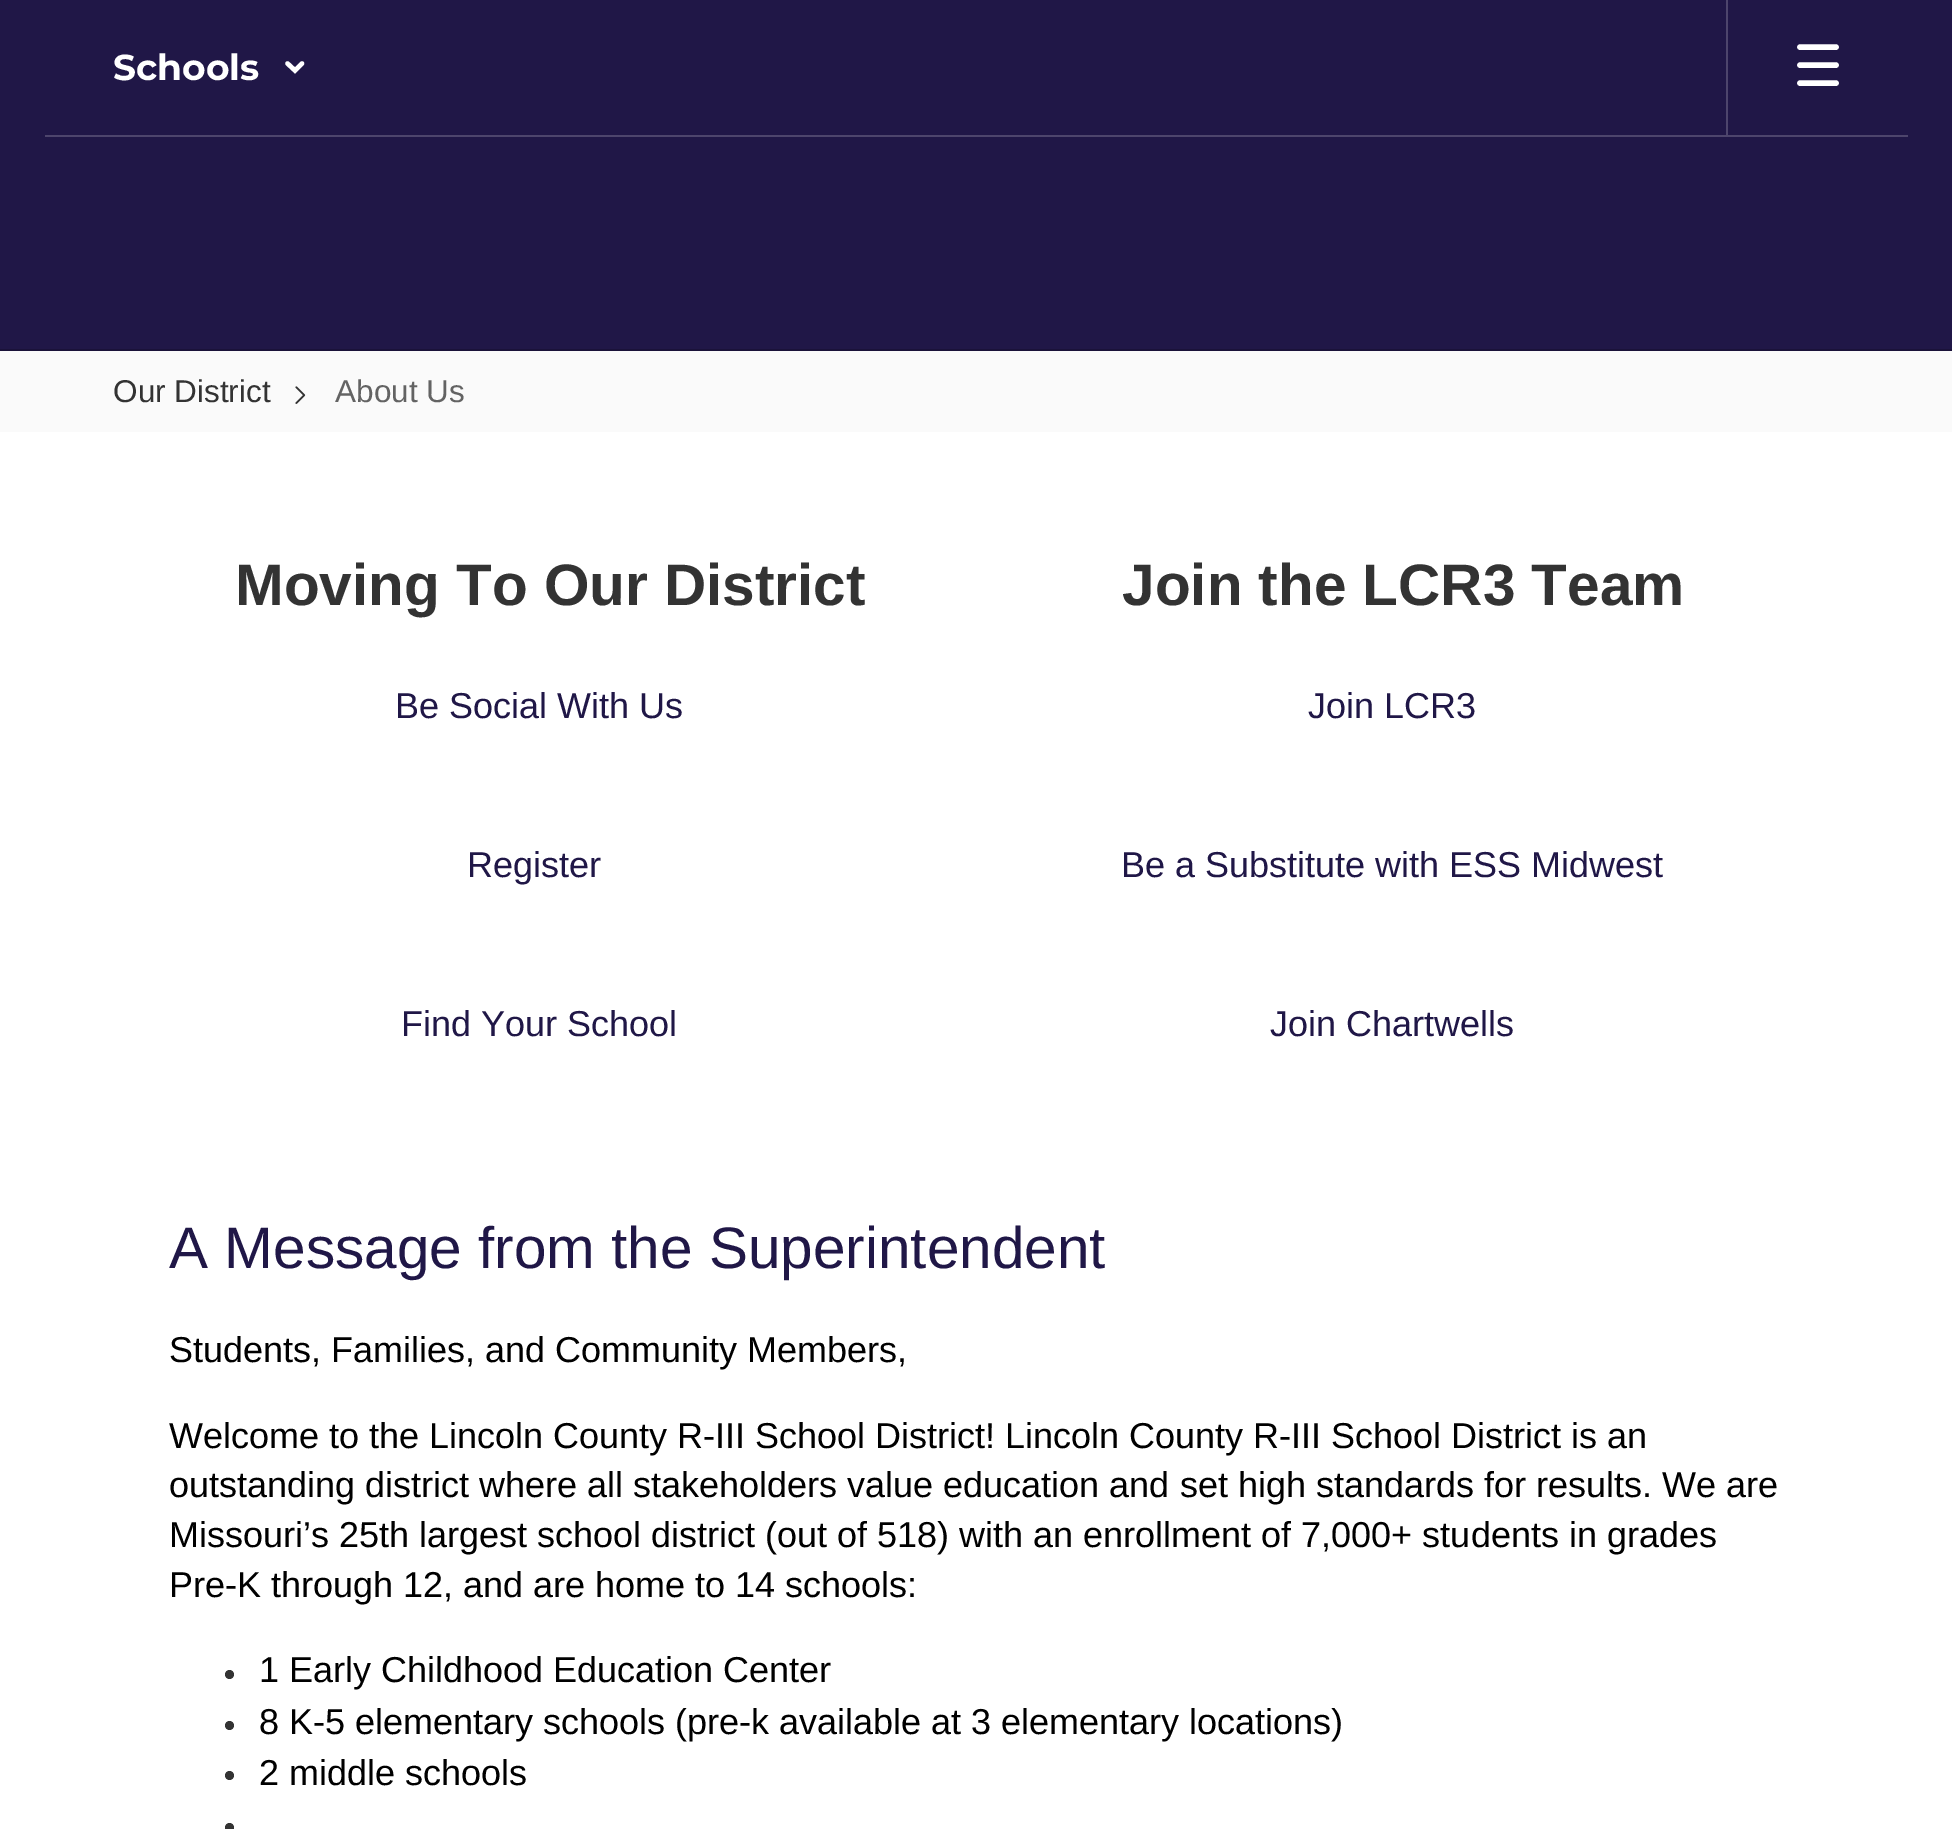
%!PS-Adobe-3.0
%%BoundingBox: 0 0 1952 1829
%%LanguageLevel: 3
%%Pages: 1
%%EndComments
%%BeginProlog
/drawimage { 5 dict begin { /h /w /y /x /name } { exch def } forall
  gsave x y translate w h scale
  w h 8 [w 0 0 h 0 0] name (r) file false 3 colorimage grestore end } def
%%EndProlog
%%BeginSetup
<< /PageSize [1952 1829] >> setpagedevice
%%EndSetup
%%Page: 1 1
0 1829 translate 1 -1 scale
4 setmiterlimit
1 setgray
0 0 1952 1829 rectfill
0.125 0.09 0.278 setrgbcolor
0 0 1952 349 rectfill
0.302 0.271 0.424 setrgbcolor
45 135 1863 2 rectfill
1 setgray
4.5 setlinewidth
1 setlinecap
newpath 287.5 63.5 moveto 295 70.5 lineto 302 63.5 lineto stroke
0.302 0.271 0.424 setrgbcolor
1726 0 2 135 rectfill
1 setgray
5.6 setlinewidth
newpath 1800 47 moveto 1836 47 lineto 1800 65 moveto 1836 65 lineto 1800 83 moveto 1836 83 lineto stroke
0.102 0.071 0.224 setrgbcolor
0 349 1952 2 rectfill
0.98 setgray
0 351 1952 81 rectfill
(images/1.raw) 295 386 11 18 drawimage
0.2 setgray
newpath 229.5 1674.5 4.5 0 360 arc closepath fill
newpath 229.5 1725.5 4.5 0 360 arc closepath fill
newpath 229.5 1775.5 4.5 0 360 arc closepath fill
newpath 229.5 1827.5 4.5 0 360 arc closepath fill
/Montserrat-Bold [36 0 0 -36 0 0] selectfont
1 setgray
113 80 moveto (Schools) show
/LiberationSans-Regular [31.5 0 0 -31.5 0 0] selectfont
0.2 setgray
113 402 moveto (Our District) show
0.388 setgray
335 402 moveto (About Us) show
/LiberationSans-Bold [58.5 0 0 -58.5 0 0] selectfont
0.2 setgray
235 605 moveto (Moving To Our District) show
/LiberationSans-Regular [36 0 0 -36 0 0] selectfont
0.125 0.09 0.278 setrgbcolor
395 718 moveto (Be Social With Us) show
467 877 moveto (Register) show
401 1036 moveto (Find Your School) show
/LiberationSans-Bold [58.5 0 0 -58.5 0 0] selectfont
0.2 setgray
1122 605 moveto (Join the LCR3 Team) show
/LiberationSans-Regular [36 0 0 -36 0 0] selectfont
0.125 0.09 0.278 setrgbcolor
1308 718 moveto (Join LCR3) show
1121 877 moveto (Be a Substitute with ESS Midwest) show
1270 1036 moveto (Join Chartwells) show
/LiberationSans-Regular [58.5 0 0 -58.5 0 0] selectfont
169 1268 moveto (A Message from the Superintendent) show
/LiberationSans-Regular [36 0 0 -36 0 0] selectfont
0 setgray
169 1362 moveto (Students, Families, and Community Members,) show
169 1448 moveto (Welcome to the Lincoln County R-III School District! Lincoln County R-III School District is an) show
169 1497 moveto (outstanding district where all stakeholders value education and set high standards for results. We are) show
169 1547 moveto (Missouri’s 25th largest school district \(out of 518\) with an enrollment of 7,000+ students in grades) show
169 1597 moveto (Pre-K through 12, and are home to 14 schools:) show
259 1682 moveto (1 Early Childhood Education Center) show
259 1734 moveto (8 K-5 elementary schools \(pre-k available at 3 elementary locations\)) show
259 1785 moveto (2 middle schools) show
showpage
%%EOF
